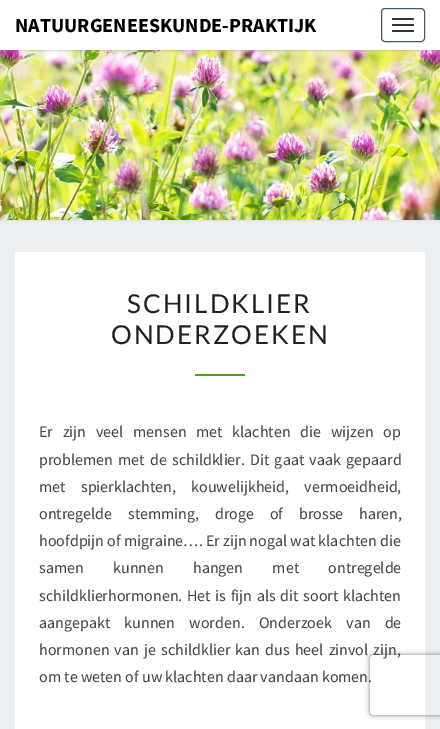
%!PS-Adobe-3.0
%%BoundingBox: 0 0 440 729
%%LanguageLevel: 3
%%Pages: 1
%%EndComments
%%BeginProlog
/setalpha { dup .setfillconstantalpha .setstrokeconstantalpha } def
/rrect { 5 dict begin { /r /h /w /y /x } { exch def } forall
  x r add y moveto x w add y 2 copy h add r arct x w add y h add x 1 index r arct
  x y h add x y r arct x y 2 copy exch w add exch r arct closepath end } def
/softshadow { 12 dict begin { /a /b /q /h /w /y /x } { exch def } forall gsave /was 0 def
  9 -2 -9 { dup b mul 4 div /e exch def 1 sub .425 mul 2.718 exch exp 1 add a .99 .min exch div /now exch def
    1 1 now sub 1 was sub div sub setalpha /was now def
    w h .min e 2 mul add 0 gt { x e sub y e sub w e 2 mul add h e 2 mul add
      q e add b .6 mul add w h .min 2 div e add .min 0 .max rrect fill } if } for grestore end } def
/drawimage { 5 dict begin { /h /w /y /x /name } { exch def } forall
  gsave x y translate w h scale
  w h 8 [w 0 0 h 0 0] name (r) file false 3 colorimage grestore end } def
%%EndProlog
%%BeginSetup
<< /PageSize [440 729] /PageUsesTransparency true >> setpagedevice
%%EndSetup
%%Page: 1 1
0 .pushpdf14devicefilter
0 729 translate 1 -1 scale
4 setmiterlimit
0.925 0.937 0.945 setrgbcolor
0 0 440 729 rectfill
0.714 setgray
-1 49 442 172 0 1 0.3 softshadow
(images/1.raw) 0 50 440 170 drawimage
0.392 setgray
0 1 440 50 0 0.5 0.2 softshadow
1 setgray
0 0 440 50 rectfill
0.271 0.353 0.392 setrgbcolor
381.5 8.5 43 33 3.5 rrect stroke
0.2 setgray
392 18 22 2 1 rrect fill
392 24 22 2 1 rrect fill
392 30 22 2 1 rrect fill
1 setgray
15 252 410 477 rectfill
0.251 0.659 0 setrgbcolor
195 374 50 2 rectfill
gsave
newpath 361 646 moveto 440 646 lineto 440 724 lineto 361 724 lineto closepath 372 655 moveto 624 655 lineto 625 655 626 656 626 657 curveto 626 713 lineto 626 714 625 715 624 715 curveto 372 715 lineto 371 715 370 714 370 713 curveto 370 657 lineto 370 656 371 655 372 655 curveto closepath eoclip newpath
0.502 setgray
370 655 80 60 2 2.5 1 softshadow
grestore
/SourceSansPro-Bold [20 0 0 -20 0 0] selectfont
0 setgray
15 32 moveto (NATUURGENEESKUNDE-PRAKTIJK) show
/Lato-Regular [26 0 0 -26 0 0] selectfont
0.129 setgray
127 313 moveto 2 0 (SCHILDKLIER) ashow
111 344 moveto 2 0 (ONDERZOEKEN) ashow
/SourceSansPro-Regular [16 0 0 -16 0 0] selectfont
0.259 setgray
39 437 moveto 6.5 0 32 (Er zijn veel mensen met klachten die wijzen op) widthshow
39 465 moveto 2 0 32 (problemen met de schildklier. Dit gaat vaak gepaard) widthshow
39 492 moveto 12 0 32 (met spierklachten, kouwelijkheid, vermoeidheid,) widthshow
39 519 moveto 12.5 0 32 (ontregelde stemming, droge of brosse haren,) widthshow
39 546 moveto (hoofdpijn of migraine…. Er zijn nogal wat klachten die) show
39 573 moveto 26 0 32 (samen kunnen hangen met ontregelde) widthshow
39 601 moveto 1.5 0 32 (schildklierhormonen. Het is fijn als dit soort klachten) widthshow
39 628 moveto 11 0 32 (aangepakt kunnen worden. Onderzoek van de) widthshow
39 655 moveto 2 0 32 (hormonen van je schildklier kan dus heel zinvol zijn,) widthshow
39 682 moveto (om te weten of uw klachten daar vandaan komen.) show
.poppdf14devicefilter showpage
%%EOF
